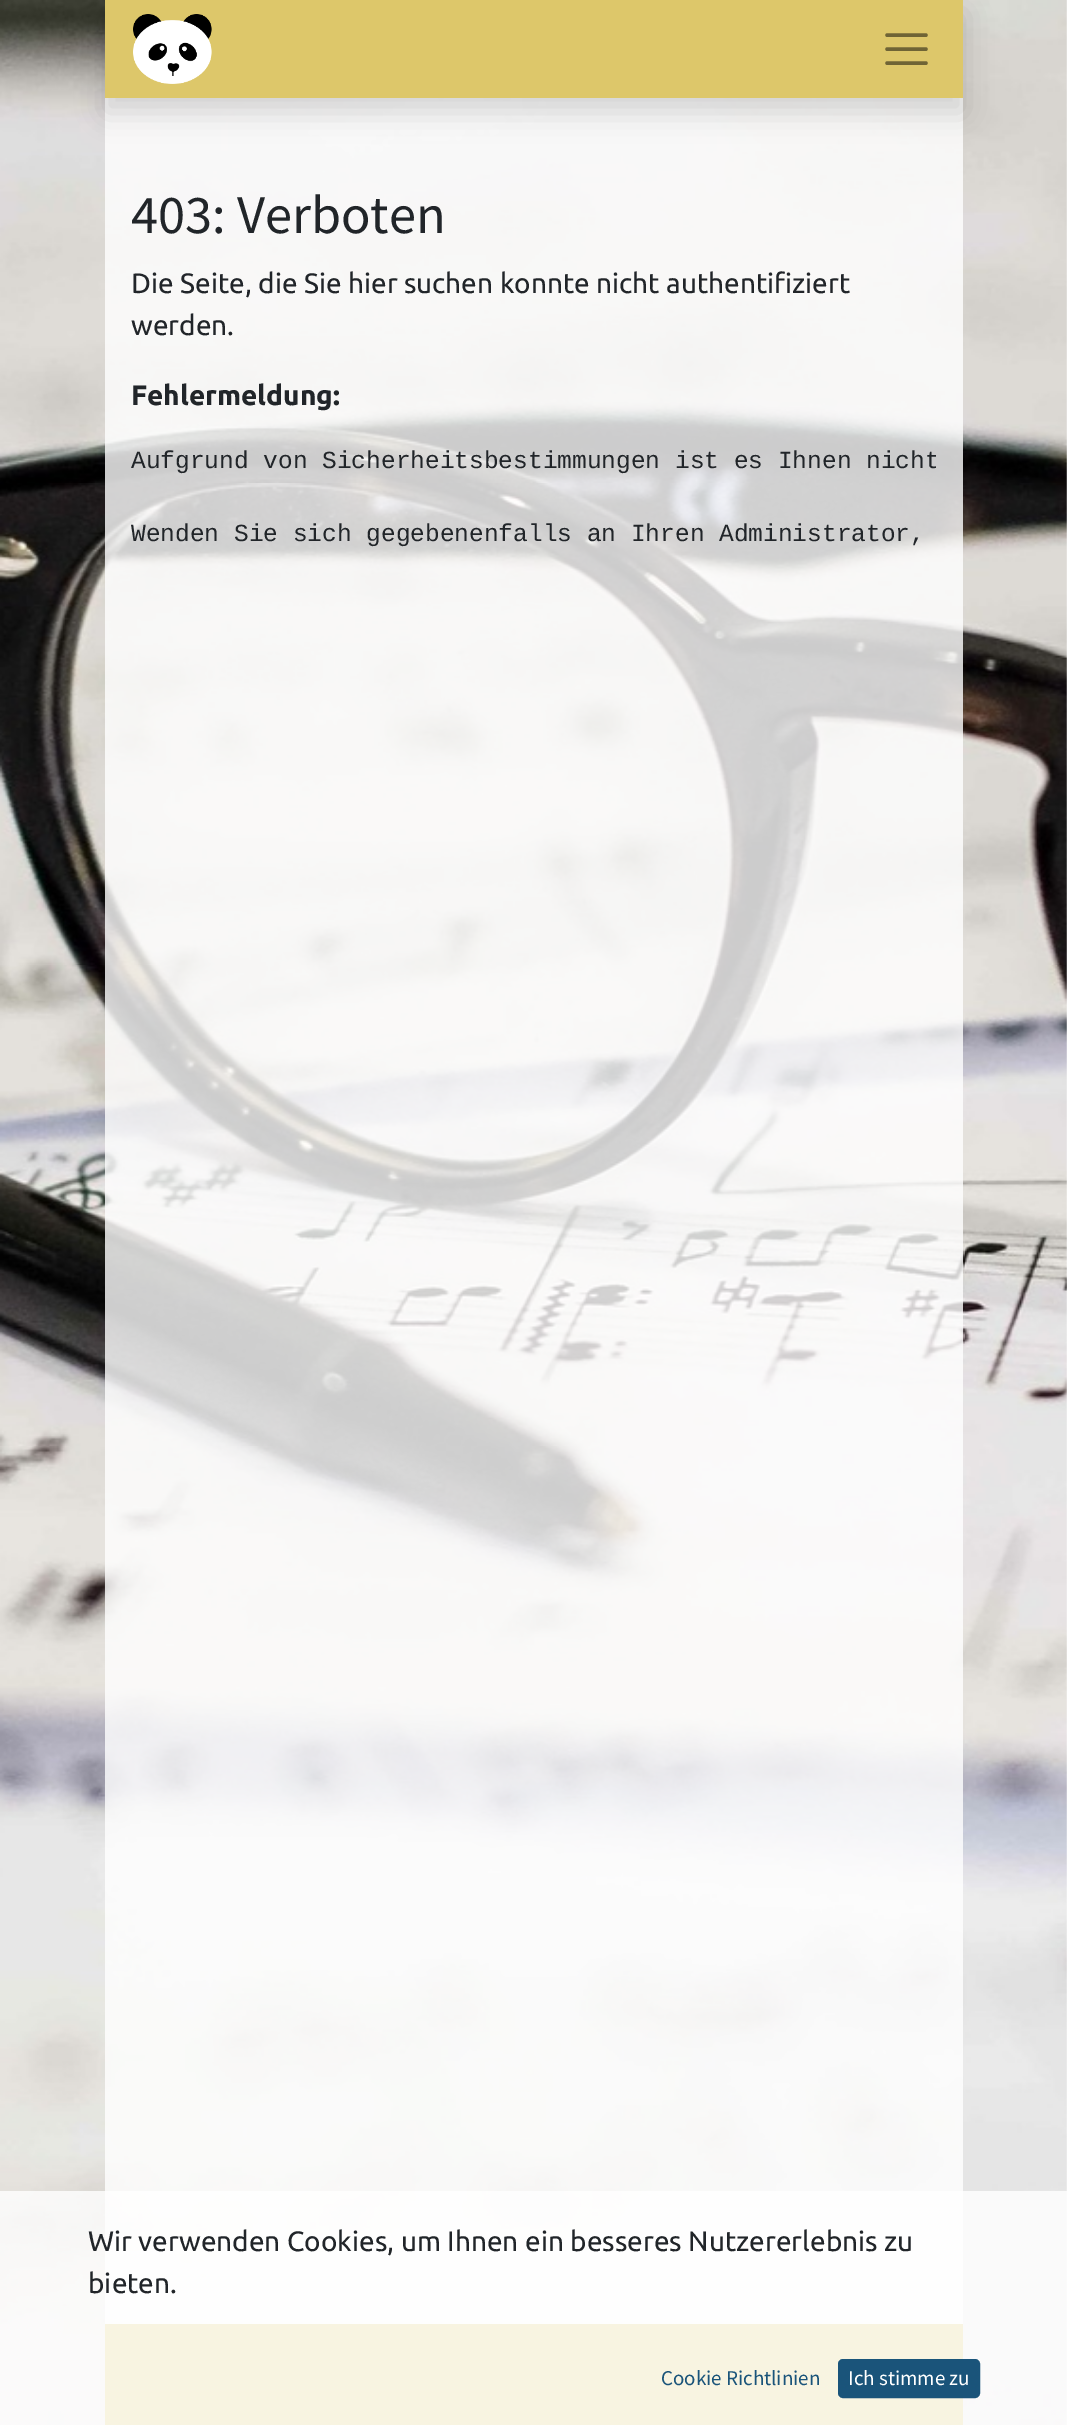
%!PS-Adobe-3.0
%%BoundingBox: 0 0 1067 2425
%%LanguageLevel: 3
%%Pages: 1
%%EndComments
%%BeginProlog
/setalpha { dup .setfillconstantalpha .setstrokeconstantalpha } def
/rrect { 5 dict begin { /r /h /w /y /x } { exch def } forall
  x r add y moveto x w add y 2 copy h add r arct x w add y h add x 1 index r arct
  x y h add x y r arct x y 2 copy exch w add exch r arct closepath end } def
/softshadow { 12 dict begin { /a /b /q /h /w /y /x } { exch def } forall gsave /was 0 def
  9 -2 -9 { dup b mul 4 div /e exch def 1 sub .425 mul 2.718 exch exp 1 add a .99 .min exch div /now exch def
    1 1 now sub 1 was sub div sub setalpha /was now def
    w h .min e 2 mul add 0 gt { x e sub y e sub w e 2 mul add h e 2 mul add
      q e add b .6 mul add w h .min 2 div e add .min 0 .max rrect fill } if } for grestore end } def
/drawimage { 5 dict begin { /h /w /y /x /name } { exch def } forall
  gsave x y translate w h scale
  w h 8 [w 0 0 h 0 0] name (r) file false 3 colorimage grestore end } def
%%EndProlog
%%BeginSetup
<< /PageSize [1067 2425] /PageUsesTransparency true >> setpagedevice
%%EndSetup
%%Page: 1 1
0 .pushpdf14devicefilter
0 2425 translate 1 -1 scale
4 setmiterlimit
1 setgray
0 0 1067 2425 rectfill
(images/1.raw) 0 0 1067 2425 drawimage
0.8 setalpha
105 98 858 2226 rectfill
1 setalpha
0 setgray
105 14 858 98 0 14 0.15 softshadow
0.867 0.78 0.416 setrgbcolor
105 0 858 98 rectfill
(images/2.raw) 133 14 79 70 drawimage
0.435 0.392 0.208 setrgbcolor
3.5 setlinewidth
1 setlinecap
newpath 887 35 moveto 926 35 lineto 887 49 moveto 926 49 lineto 887 63 moveto 926 63 lineto stroke
0.867 0.78 0.416 setrgbcolor
105 2324 858 101 rectfill
0.8 setalpha
1 setgray
0 2191 1067 234 rectfill
1 setalpha
0.102 0.329 0.478 setrgbcolor
839 2360 140 37 4 rrect gsave fill grestore
2 setlinewidth
0 setlinecap
stroke
/SourceSansPro-Regular [54.5 0 0 -54.5 0 0] selectfont
0.129 0.145 0.161 setrgbcolor
131 233 moveto (403: Verboten) show
/Ubuntu-Regular [28 0 0 -28 0 0] selectfont
131 293 moveto (Die Seite, die Sie hier suchen konnte nicht authentifiziert) show
131 335 moveto (werden.) show
/Ubuntu-Bold [28 0 0 -28 0 0] selectfont
131 405 moveto (Fehlermeldung:) show
gsave
131 443 805 110 rectclip
/LiberationMono-Regular [24.5 0 0 -24.5 0 0] selectfont
131 468 moveto (Aufgrund von Sicherheitsbestimmungen ist es Ihnen nicht) show
grestore
/LiberationMono-Regular [24.5 0 0 -24.5 0 0] selectfont
131 541 moveto (Wenden Sie sich gegebenenfalls an Ihren Administrator,) show
/Ubuntu-Regular [28 0 0 -28 0 0] selectfont
88 2251 moveto (Wir verwenden Cookies, um Ihnen ein besseres Nutzererlebnis zu) show
88 2293 moveto (bieten.) show
/SourceSansPro-Regular [21 0 0 -21 0 0] selectfont
0.102 0.329 0.478 setrgbcolor
661 2385 moveto (Cookie Richtlinien) show
1 setgray
848 2385 moveto (Ich stimme zu) show
.poppdf14devicefilter showpage
%%EOF
